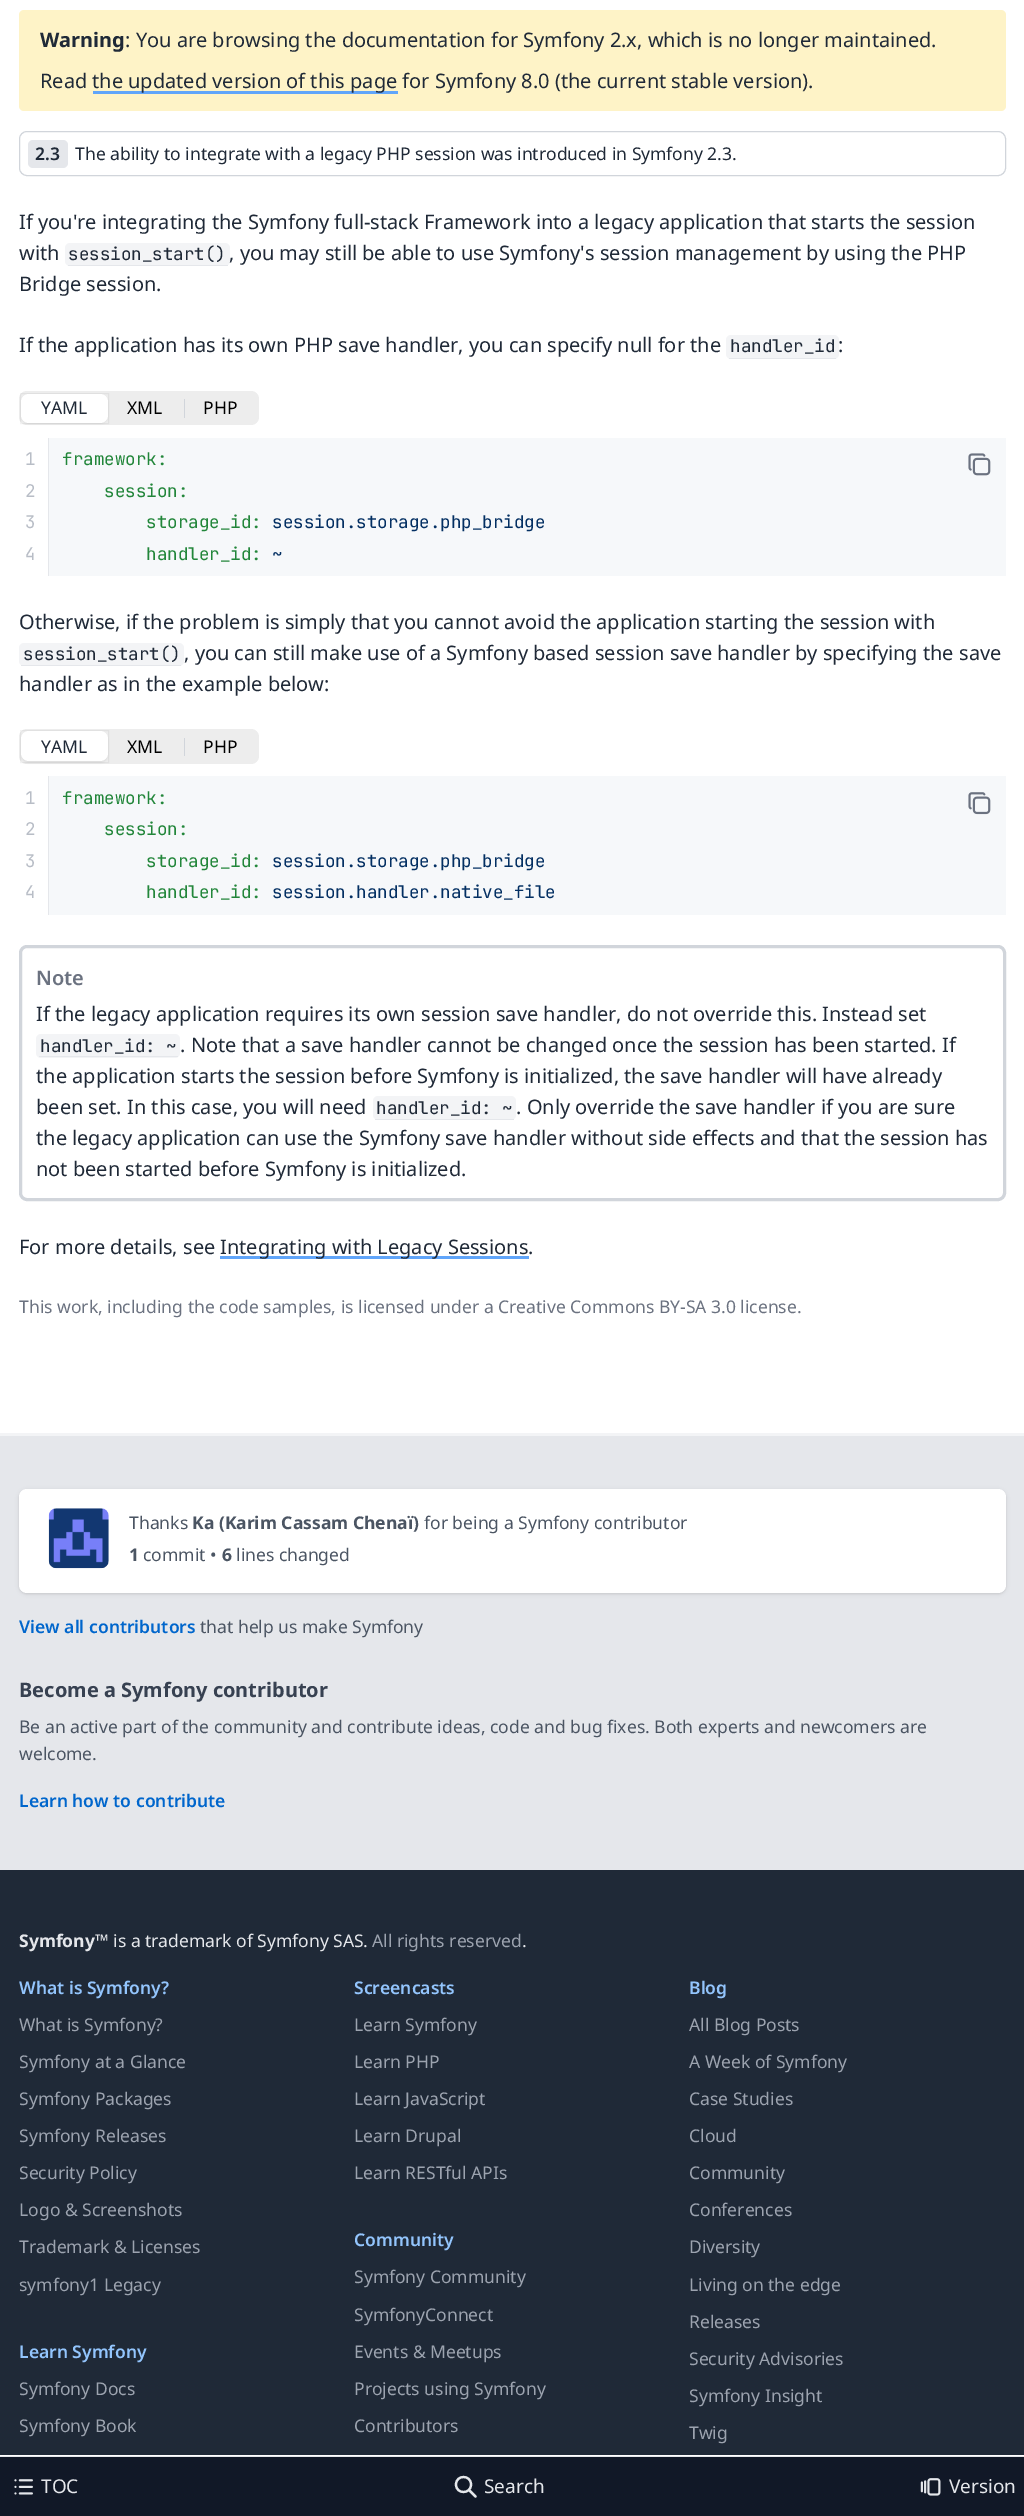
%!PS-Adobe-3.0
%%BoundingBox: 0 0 1024 2516
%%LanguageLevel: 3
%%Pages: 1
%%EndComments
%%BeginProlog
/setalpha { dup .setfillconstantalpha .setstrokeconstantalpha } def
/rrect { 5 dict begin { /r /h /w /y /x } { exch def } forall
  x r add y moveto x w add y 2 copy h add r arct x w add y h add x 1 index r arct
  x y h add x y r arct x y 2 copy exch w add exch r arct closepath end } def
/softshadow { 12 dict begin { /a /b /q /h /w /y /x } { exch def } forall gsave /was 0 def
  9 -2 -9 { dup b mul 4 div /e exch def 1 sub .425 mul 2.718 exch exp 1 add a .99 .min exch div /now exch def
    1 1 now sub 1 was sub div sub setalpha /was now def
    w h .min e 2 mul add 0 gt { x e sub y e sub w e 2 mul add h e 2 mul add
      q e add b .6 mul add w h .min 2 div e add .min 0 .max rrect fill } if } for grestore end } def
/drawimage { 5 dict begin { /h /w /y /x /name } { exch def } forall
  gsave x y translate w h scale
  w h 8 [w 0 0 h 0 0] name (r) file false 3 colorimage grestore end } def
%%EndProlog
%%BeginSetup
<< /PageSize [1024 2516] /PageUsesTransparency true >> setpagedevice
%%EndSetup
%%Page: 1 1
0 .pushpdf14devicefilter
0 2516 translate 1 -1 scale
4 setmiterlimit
1 setgray
0 0 1024 2516 rectfill
0.996 0.953 0.78 setrgbcolor
19 10 987 101 5 rrect fill
0.376 0.647 0.98 setrgbcolor
93 91 305 3 rectfill
0.82 0.835 0.859 setrgbcolor
19.5 131.5 986 44 7.5 rrect stroke
0.898 0.906 0.922 setrgbcolor
28 140 40 28 5 rrect fill
0.953 0.957 0.965 setrgbcolor
65 243 165 23 5 rrect fill
0.898 0.906 0.922 setrgbcolor
68 265 160 1 rectfill
0.953 0.957 0.965 setrgbcolor
726 335 113 24 5 rrect fill
0.898 0.906 0.922 setrgbcolor
729 358 107 1 rectfill
0.929 setgray
19 391 240 34 8 rrect fill
0 setgray
21 395 87 29 8 1 0.05 softshadow
0.05 setalpha
20.5 393.5 88 30 rectstroke
1 setalpha
1 setgray
21 394 87 29 8 rrect fill
0.82 0.835 0.859 setrgbcolor
184 399 1 19 rectfill
0.898 0.906 0.922 setrgbcolor
48 438 1 138 rectfill
0.965 0.973 0.98 setrgbcolor
49 438 957 138 rectfill
(images/1.raw) 968 453 23 23 drawimage
0.953 0.957 0.965 setrgbcolor
19 643 165 23 5 rrect fill
0.898 0.906 0.922 setrgbcolor
21 665 160 1 rectfill
0.929 setgray
19 729 240 35 8 rrect fill
0 setgray
21 733 87 30 8 1 0.05 softshadow
0.05 setalpha
20.5 730.5 88 32 rectstroke
1 setalpha
1 setgray
21 731 87 30 8 rrect fill
0.82 0.835 0.859 setrgbcolor
184 738 1 18 rectfill
0.898 0.906 0.922 setrgbcolor
48 776 1 139 rectfill
0.965 0.973 0.98 setrgbcolor
49 776 957 139 rectfill
(images/2.raw) 968 792 23 23 drawimage
0.82 0.835 0.859 setrgbcolor
3 setlinewidth
20.5 946.5 984 253 6.5 rrect stroke
0.953 0.957 0.965 setrgbcolor
36 1034 144 24 5 rrect fill
0.898 0.906 0.922 setrgbcolor
39 1056 139 1 rectfill
0.953 0.957 0.965 setrgbcolor
373 1096 143 24 5 rrect fill
0.898 0.906 0.922 setrgbcolor
375 1119 139 1 rectfill
0.376 0.647 0.98 setrgbcolor
220 1256 309 3 rectfill
0.067 0.094 0.153 setrgbcolor
0 2457 1024 59 rectfill
0.898 0.906 0.922 setrgbcolor
0 2456 1024 1 rectfill
(images/3.raw) 14 2479 19 16 drawimage
2.2 setlinewidth
1 setlinecap
1 setlinejoin
newpath 456 2484.5 moveto 456 2494.5 471 2494.5 471 2484.5 curveto 471 2474.5 456 2474.5 456 2484.5 curveto 475.5 2496.5 moveto 469 2490 lineto stroke
(images/4.raw) 920 2478 21 18 drawimage
0 1436 1024 434 rectfill
0.953 0.957 0.965 setrgbcolor
0 1433 1024 3 rectfill
0 setgray
20 1491 985 102 6 1 0.1 softshadow
19 1490 987 104 8 2 0.1 softshadow
1 setgray
19 1489 987 104 8 rrect fill
(images/5.raw) 48 1508 61 61 drawimage
0.122 0.161 0.216 setrgbcolor
0 1870 1024 585 rectfill
/NotoSans-Bold [20 0 0 -20 0 0] selectfont
40 47 moveto (Warning) show
/NotoSans-Regular [20 0 0 -20 0 0] selectfont
125 47 moveto (: You are browsing the documentation for Symfony 2.x, which is no longer maintained.) show
40 88 moveto (Read) show
92 88 moveto (the updated version of this page for Symfony 8.0 \(the current stable version\).) show
/NotoSans-SemiBold [17.5 0 0 -17.5 0 0] selectfont
35 160 moveto (2.3) show
/NotoSans-Regular [17.5 0 0 -17.5 0 0] selectfont
75 160 moveto (The ability to integrate with a legacy PHP session was introduced in Symfony 2.3.) show
/NotoSans-Regular [20 0 0 -20 0 0] selectfont
19 229 moveto (If you're integrating the Symfony full-stack Framework into a legacy application that starts the session) show
19 260 moveto (with) show
/JetBrainsMono-Regular [17.5 0 0 -17.5 0 0] selectfont
68 260 moveto (session_start\(\)) show
/NotoSans-Regular [20 0 0 -20 0 0] selectfont
229 260 moveto (, you may still be able to use Symfony's session management by using the PHP) show
19 291 moveto (Bridge session.) show
19 352 moveto (If the application has its own PHP save handler, you can specify null for the) show
/JetBrainsMono-Regular [17.5 0 0 -17.5 0 0] selectfont
730 352 moveto (handler_id) show
/NotoSans-Regular [20 0 0 -20 0 0] selectfont
838 352 moveto (:) show
/NotoSans-Regular [17.5 0 0 -17.5 0 0] selectfont
41 414 moveto (YAML) show
0 setgray
127 414 moveto (XML) show
203 414 moveto (PHP) show
/JetBrainsMono-Regular [17.5 0 0 -17.5 0 0] selectfont
0.722 0.741 0.776 setrgbcolor
25 465 moveto (1) show
25 497 moveto (2) show
25 528 moveto (3) show
25 560 moveto (4) show
0.133 0.525 0.227 setrgbcolor
62 465 moveto (framework:) show
104 497 moveto (session:) show
146 528 moveto (storage_id:) show
0.012 0.184 0.384 setrgbcolor
272 528 moveto (session.storage.php_bridge) show
0.133 0.525 0.227 setrgbcolor
146 560 moveto (handler_id:) show
0.012 0.184 0.384 setrgbcolor
272 560 moveto (~) show
/NotoSans-Regular [20 0 0 -20 0 0] selectfont
0.122 0.161 0.216 setrgbcolor
19 629 moveto (Otherwise, if the problem is simply that you cannot avoid the application starting the session with) show
/JetBrainsMono-Regular [17.5 0 0 -17.5 0 0] selectfont
23 660 moveto (session_start\(\)) show
/NotoSans-Regular [20 0 0 -20 0 0] selectfont
184 660 moveto (, you can still make use of a Symfony based session save handler by specifying the save) show
19 691 moveto (handler as in the example below:) show
/NotoSans-Regular [17.5 0 0 -17.5 0 0] selectfont
41 753 moveto (YAML) show
0 setgray
127 753 moveto (XML) show
203 753 moveto (PHP) show
/JetBrainsMono-Regular [17.5 0 0 -17.5 0 0] selectfont
0.722 0.741 0.776 setrgbcolor
25 804 moveto (1) show
25 835 moveto (2) show
25 867 moveto (3) show
25 898 moveto (4) show
0.133 0.525 0.227 setrgbcolor
62 804 moveto (framework:) show
104 835 moveto (session:) show
146 867 moveto (storage_id:) show
0.012 0.184 0.384 setrgbcolor
272 867 moveto (session.storage.php_bridge) show
0.133 0.525 0.227 setrgbcolor
146 898 moveto (handler_id:) show
0.012 0.184 0.384 setrgbcolor
272 898 moveto (session.handler.native_file) show
/NotoSans-SemiBold [20 0 0 -20 0 0] selectfont
0.42 0.447 0.502 setrgbcolor
36 985 moveto (Note) show
/NotoSans-Regular [20 0 0 -20 0 0] selectfont
0.122 0.161 0.216 setrgbcolor
36 1021 moveto (If the legacy application requires its own session save handler, do not override this. Instead set) show
/JetBrainsMono-Regular [17.5 0 0 -17.5 0 0] selectfont
40 1052 moveto (handler_id: ~) show
/NotoSans-Regular [20 0 0 -20 0 0] selectfont
180 1052 moveto (. Note that a save handler cannot be changed once the session has been started. If) show
36 1083 moveto (the application starts the session before Symfony is initialized, the save handler will have already) show
36 1114 moveto (been set. In this case, you will need) show
/JetBrainsMono-Regular [17.5 0 0 -17.5 0 0] selectfont
376 1114 moveto (handler_id: ~) show
/NotoSans-Regular [20 0 0 -20 0 0] selectfont
516 1114 moveto (. Only override the save handler if you are sure) show
36 1145 moveto (the legacy application can use the Symfony save handler without side effects and that the session has) show
36 1176 moveto (not been started before Symfony is initialized.) show
19 1254 moveto (For more details, see) show
220 1254 moveto (Integrating with Legacy Sessions.) show
/NotoSans-Regular [17.5 0 0 -17.5 0 0] selectfont
0.42 0.447 0.502 setrgbcolor
19 1313 moveto (This work, including the code samples, is licensed under a Creative Commons BY-SA 3.0 license.) show
/NotoSans-Regular [19 0 0 -19 0 0] selectfont
0.898 0.906 0.922 setrgbcolor
41 2493 moveto (TOC) show
484 2493 moveto (Search) show
949 2493 moveto (Version) show
/NotoSans-Regular [17.5 0 0 -17.5 0 0] selectfont
0.294 0.333 0.388 setrgbcolor
129 1529 moveto (Thanks) show
/NotoSans-Bold [17.5 0 0 -17.5 0 0] selectfont
192 1529 moveto (Ka \(Karim Cassam Chenaï\)) show
/NotoSans-Regular [17.5 0 0 -17.5 0 0] selectfont
424 1529 moveto (for being a Symfony contributor) show
/NotoSans-Bold [17.5 0 0 -17.5 0 0] selectfont
129 1561 moveto (1) show
/NotoSans-Regular [17.5 0 0 -17.5 0 0] selectfont
143 1561 moveto (commit •) show
/NotoSans-Bold [17.5 0 0 -17.5 0 0] selectfont
222 1561 moveto (6) show
/NotoSans-Regular [17.5 0 0 -17.5 0 0] selectfont
236 1561 moveto (lines changed) show
/NotoSans-SemiBold [17.5 0 0 -17.5 0 0] selectfont
0 0.4 0.8 setrgbcolor
19 1633 moveto (View all contributors) show
/NotoSans-Regular [17.5 0 0 -17.5 0 0] selectfont
0.294 0.333 0.388 setrgbcolor
200 1633 moveto (that help us make Symfony) show
/NotoSans-Bold [20 0 0 -20 0 0] selectfont
0.216 0.255 0.318 setrgbcolor
19 1697 moveto (Become a Symfony contributor) show
/NotoSans-Regular [17.5 0 0 -17.5 0 0] selectfont
0.294 0.333 0.388 setrgbcolor
19 1733 moveto (Be an active part of the community and contribute ideas, code and bug fixes. Both experts and newcomers are) show
19 1760 moveto (welcome.) show
/NotoSans-SemiBold [17.5 0 0 -17.5 0 0] selectfont
0 0.4 0.8 setrgbcolor
19 1807 moveto (Learn how to contribute) show
/NotoSans-Bold [17.5 0 0 -17.5 0 0] selectfont
0.898 0.906 0.922 setrgbcolor
19 1947 moveto (Symfony) show
/NotoSans-Regular [17.5 0 0 -17.5 0 0] selectfont
95 1947 moveto (™ is a trademark of Symfony SAS.) show
0.612 0.639 0.686 setrgbcolor
372 1947 moveto (All rights reserved) show
0.898 0.906 0.922 setrgbcolor
522 1947 moveto (.) show
/NotoSans-SemiBold [17.5 0 0 -17.5 0 0] selectfont
0.576 0.773 0.992 setrgbcolor
19 1994 moveto (What is Symfony?) show
/NotoSans-Regular [17.5 0 0 -17.5 0 0] selectfont
0.612 0.639 0.686 setrgbcolor
19 2031 moveto (What is Symfony?) show
19 2068 moveto (Symfony at a Glance) show
19 2105 moveto (Symfony Packages) show
19 2142 moveto (Symfony Releases) show
19 2179 moveto (Security Policy) show
19 2216 moveto (Logo & Screenshots) show
19 2253 moveto (Trademark & Licenses) show
19 2291 moveto (symfony1 Legacy) show
/NotoSans-SemiBold [17.5 0 0 -17.5 0 0] selectfont
0.576 0.773 0.992 setrgbcolor
354 1994 moveto (Screencasts) show
/NotoSans-Regular [17.5 0 0 -17.5 0 0] selectfont
0.612 0.639 0.686 setrgbcolor
354 2031 moveto (Learn Symfony) show
354 2068 moveto (Learn PHP) show
354 2105 moveto (Learn JavaScript) show
354 2142 moveto (Learn Drupal) show
354 2179 moveto (Learn RESTful APIs) show
/NotoSans-SemiBold [17.5 0 0 -17.5 0 0] selectfont
0.576 0.773 0.992 setrgbcolor
689 1994 moveto (Blog) show
/NotoSans-Regular [17.5 0 0 -17.5 0 0] selectfont
0.612 0.639 0.686 setrgbcolor
689 2031 moveto (All Blog Posts) show
689 2068 moveto (A Week of Symfony) show
689 2105 moveto (Case Studies) show
689 2142 moveto (Cloud) show
689 2179 moveto (Community) show
689 2216 moveto (Conferences) show
689 2253 moveto (Diversity) show
689 2291 moveto (Living on the edge) show
689 2328 moveto (Releases) show
689 2365 moveto (Security Advisories) show
689 2402 moveto (Symfony Insight) show
689 2439 moveto (Twig) show
/NotoSans-SemiBold [17.5 0 0 -17.5 0 0] selectfont
0.576 0.773 0.992 setrgbcolor
19 2358 moveto (Learn Symfony) show
/NotoSans-Regular [17.5 0 0 -17.5 0 0] selectfont
0.612 0.639 0.686 setrgbcolor
19 2395 moveto (Symfony Docs) show
19 2432 moveto (Symfony Book) show
/NotoSans-SemiBold [17.5 0 0 -17.5 0 0] selectfont
0.576 0.773 0.992 setrgbcolor
354 2246 moveto (Community) show
/NotoSans-Regular [17.5 0 0 -17.5 0 0] selectfont
0.612 0.639 0.686 setrgbcolor
354 2283 moveto (Symfony Community) show
354 2321 moveto (SymfonyConnect) show
354 2358 moveto (Events & Meetups) show
354 2395 moveto (Projects using Symfony) show
354 2432 moveto (Contributors) show
.poppdf14devicefilter showpage
%%EOF
